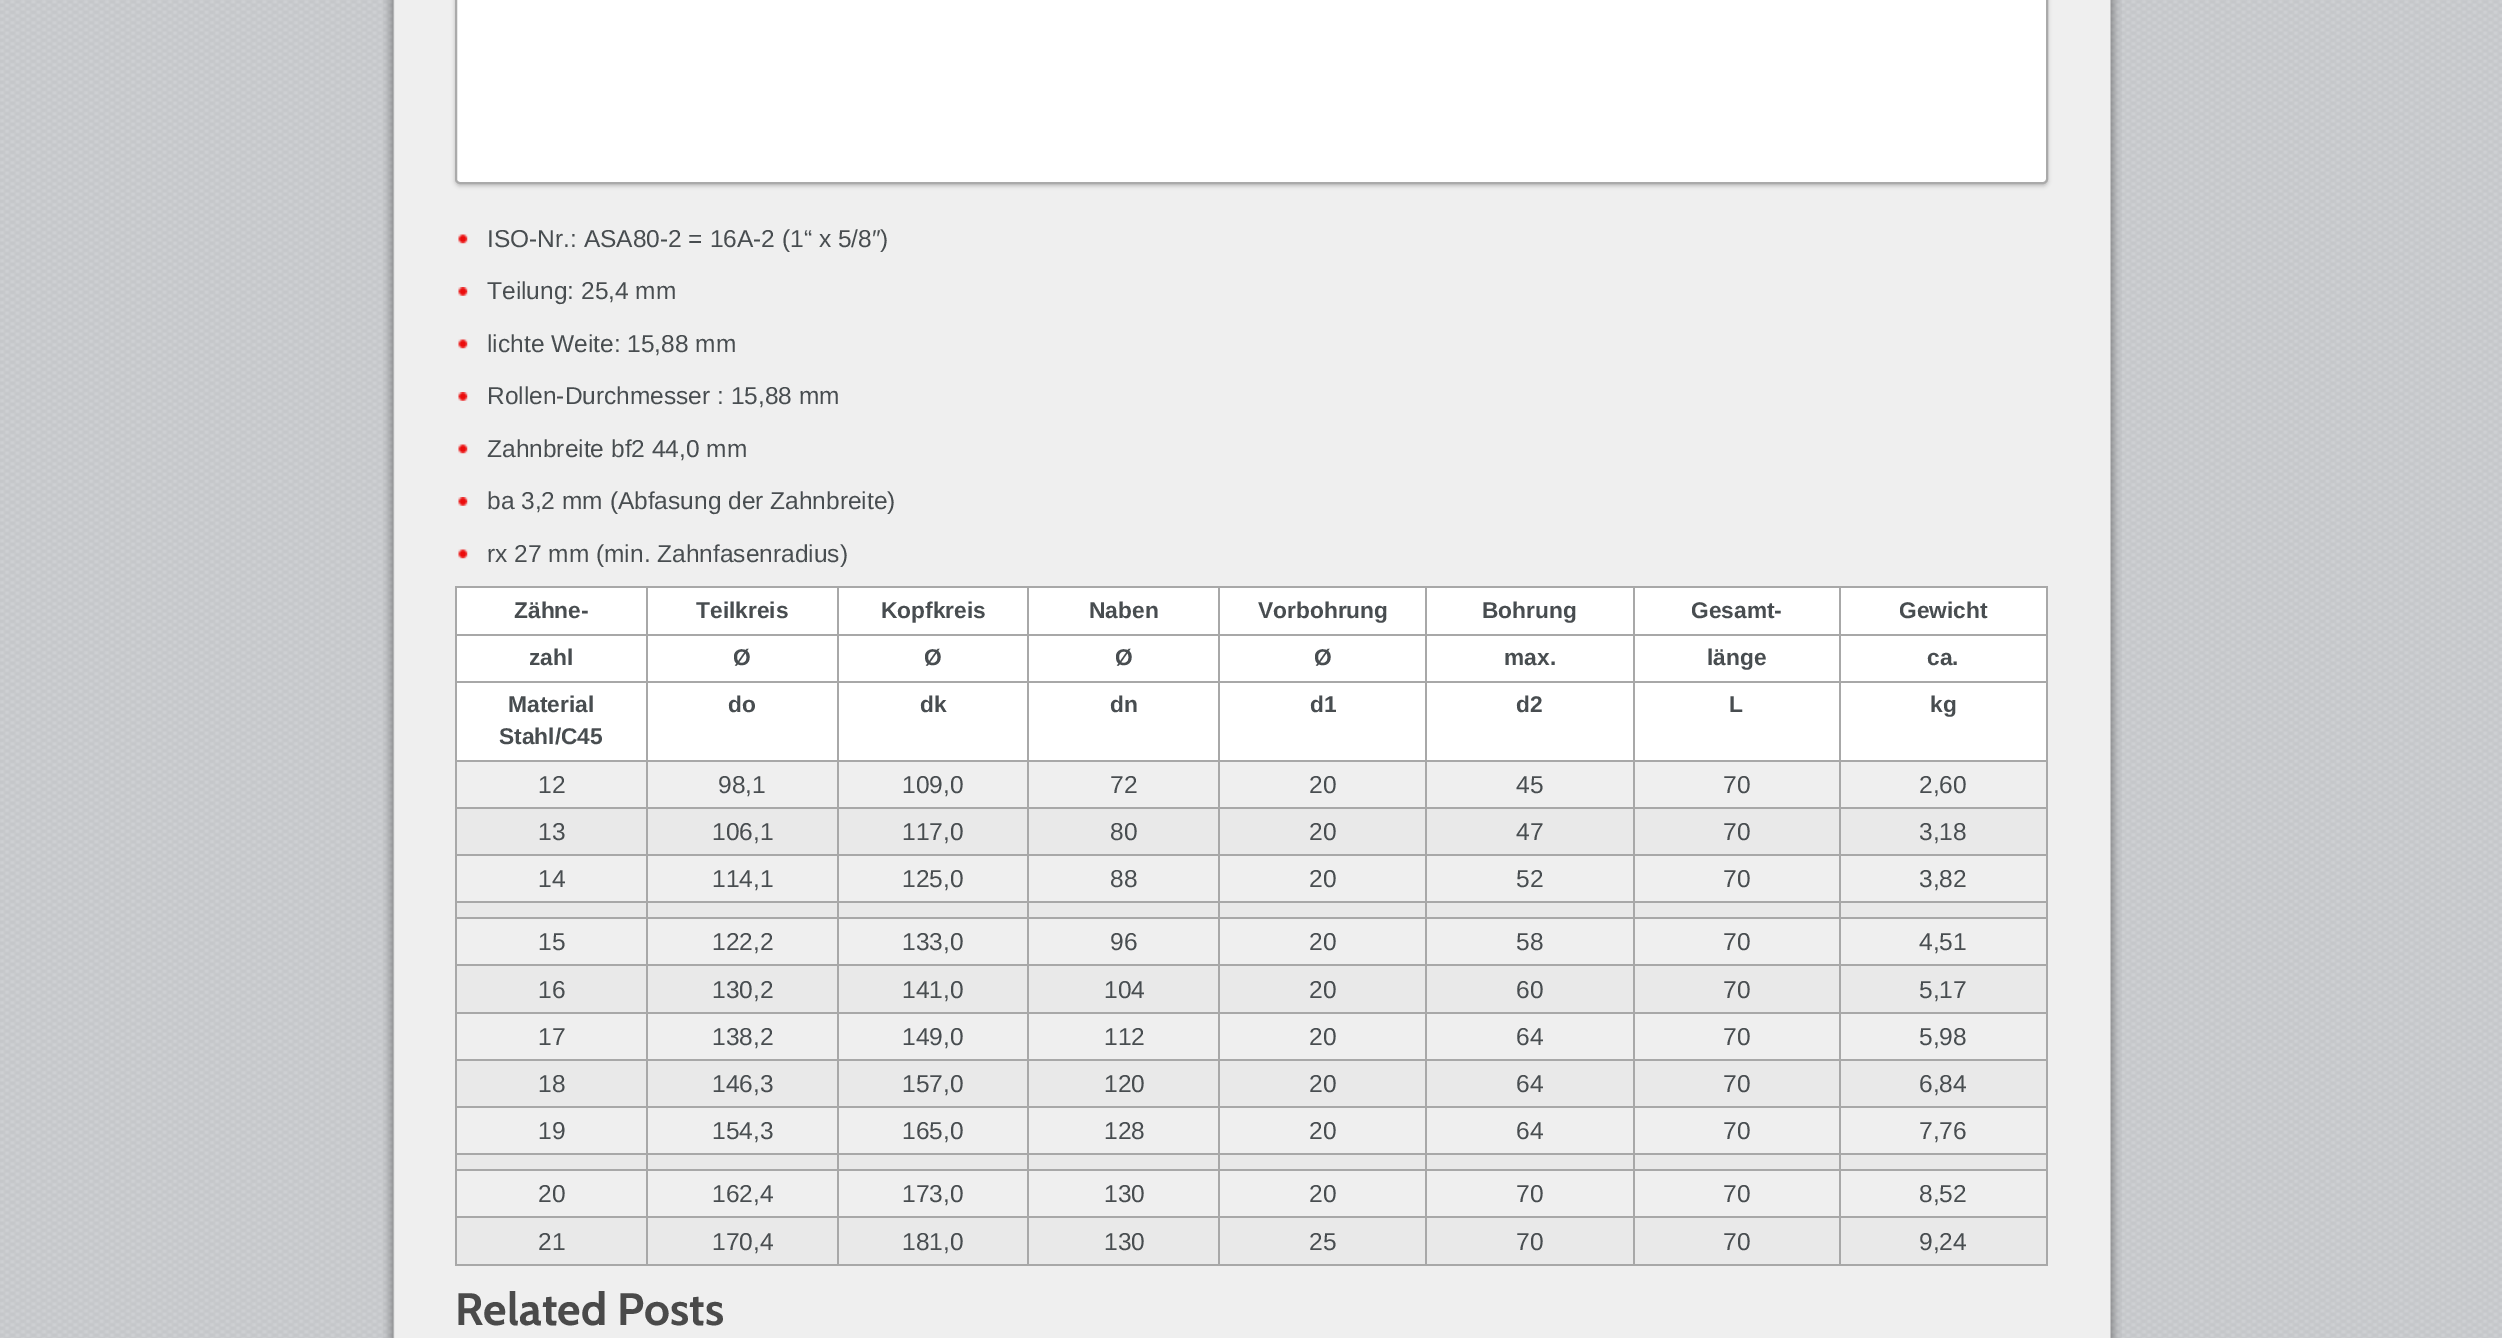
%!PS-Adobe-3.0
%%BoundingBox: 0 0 2502 1338
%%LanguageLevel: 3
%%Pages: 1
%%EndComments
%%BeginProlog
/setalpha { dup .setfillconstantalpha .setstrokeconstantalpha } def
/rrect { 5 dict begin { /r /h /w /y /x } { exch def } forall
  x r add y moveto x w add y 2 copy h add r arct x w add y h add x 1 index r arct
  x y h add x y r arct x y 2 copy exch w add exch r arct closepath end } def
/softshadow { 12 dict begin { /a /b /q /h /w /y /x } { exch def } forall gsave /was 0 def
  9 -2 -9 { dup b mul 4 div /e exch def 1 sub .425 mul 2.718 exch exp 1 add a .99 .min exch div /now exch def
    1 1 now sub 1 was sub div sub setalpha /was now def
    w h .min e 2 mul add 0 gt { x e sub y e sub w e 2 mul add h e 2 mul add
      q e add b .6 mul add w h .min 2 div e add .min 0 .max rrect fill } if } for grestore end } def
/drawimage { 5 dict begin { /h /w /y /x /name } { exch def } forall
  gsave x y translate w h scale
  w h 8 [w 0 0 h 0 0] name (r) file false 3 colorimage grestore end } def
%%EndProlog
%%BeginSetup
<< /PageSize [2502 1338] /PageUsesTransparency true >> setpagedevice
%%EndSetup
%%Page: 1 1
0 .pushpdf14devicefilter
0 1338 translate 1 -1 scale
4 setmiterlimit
1 setgray
0 0 2502 1338 rectfill
(images/1.raw) 0 0 2502 1338 drawimage
(images/2.raw) 383 0 1739 1338 drawimage
0 setgray
455 -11 1593 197 5 2 0.2 softshadow
1 setgray
456 -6 1591 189 4 rrect gsave fill grestore
0.667 setgray
2 setlinewidth
stroke
(images/3.raw) 458 234 10 10 drawimage
(images/4.raw) 458 287 10 9 drawimage
(images/3.raw) 458 339 10 10 drawimage
(images/4.raw) 458 392 10 9 drawimage
(images/3.raw) 458 444 10 10 drawimage
(images/4.raw) 458 497 10 9 drawimage
(images/5.raw) 458 549 10 10 drawimage
1 setgray
457 588 1589 46 rectfill
0.659 setgray
1839 586 209 2 rectfill
1839 634 209 2 rectfill
1 setgray
457 636 1589 45 rectfill
0.659 setgray
1839 681 209 2 rectfill
1 setgray
457 683 1589 77 rectfill
0.659 setgray
1839 760 209 2 rectfill
1839 807 209 2 rectfill
0.914 setgray
457 809 1589 45 rectfill
0.659 setgray
1839 854 209 2 rectfill
1839 901 209 2 rectfill
0.914 setgray
457 903 1589 14 rectfill
0.659 setgray
1839 917 209 2 rectfill
1839 964 209 2 rectfill
0.914 setgray
457 966 1589 46 rectfill
0.659 setgray
1839 1012 209 2 rectfill
1839 1059 209 2 rectfill
0.914 setgray
457 1061 1589 45 rectfill
0.659 setgray
1839 1106 209 2 rectfill
1839 1153 209 2 rectfill
0.914 setgray
457 1155 1589 14 rectfill
0.659 setgray
1839 1169 209 2 rectfill
1839 1216 209 2 rectfill
0.914 setgray
457 1218 1589 46 rectfill
0.659 setgray
2046 1216 2 49 rectfill
1839 1264 209 2 rectfill
1839 1216 2 49 rectfill
1633 1216 208 2 rectfill
1839 1169 2 49 rectfill
1633 1169 208 2 rectfill
1839 1153 2 18 rectfill
1633 1153 208 2 rectfill
1839 1106 2 49 rectfill
1633 1106 208 2 rectfill
1839 1059 2 49 rectfill
1633 1059 208 2 rectfill
1839 1012 2 49 rectfill
1633 1012 208 2 rectfill
1839 964 2 49 rectfill
1633 964 208 2 rectfill
1839 917 2 49 rectfill
1633 917 208 2 rectfill
1839 901 2 18 rectfill
1633 901 208 2 rectfill
1839 854 2 49 rectfill
1633 854 208 2 rectfill
1839 807 2 49 rectfill
1633 807 208 2 rectfill
1839 760 2 49 rectfill
1633 760 208 2 rectfill
1839 681 2 80 rectfill
1633 681 208 2 rectfill
1839 634 2 49 rectfill
1633 634 208 2 rectfill
1839 586 2 49 rectfill
1633 586 208 2 rectfill
1633 1264 208 2 rectfill
1633 1216 2 49 rectfill
1425 1216 210 2 rectfill
1633 1169 2 49 rectfill
1425 1169 210 2 rectfill
1633 1153 2 18 rectfill
1425 1153 210 2 rectfill
1633 1106 2 49 rectfill
1425 1106 210 2 rectfill
1633 1059 2 49 rectfill
1425 1059 210 2 rectfill
1633 1012 2 49 rectfill
1425 1012 210 2 rectfill
1633 964 2 49 rectfill
1425 964 210 2 rectfill
1633 917 2 49 rectfill
1425 917 210 2 rectfill
1633 901 2 18 rectfill
1425 901 210 2 rectfill
1633 854 2 49 rectfill
1425 854 210 2 rectfill
1633 807 2 49 rectfill
1425 807 210 2 rectfill
1633 760 2 49 rectfill
1425 760 210 2 rectfill
1633 681 2 80 rectfill
1425 681 210 2 rectfill
1633 634 2 49 rectfill
1425 634 210 2 rectfill
1633 586 2 49 rectfill
1425 586 210 2 rectfill
1425 1264 210 2 rectfill
1425 1216 2 49 rectfill
1218 1216 208 2 rectfill
1425 1169 2 49 rectfill
1218 1169 208 2 rectfill
1425 1153 2 18 rectfill
1218 1153 208 2 rectfill
1425 1106 2 49 rectfill
1218 1106 208 2 rectfill
1425 1059 2 49 rectfill
1218 1059 208 2 rectfill
1425 1012 2 49 rectfill
1218 1012 208 2 rectfill
1425 964 2 49 rectfill
1218 964 208 2 rectfill
1425 917 2 49 rectfill
1218 917 208 2 rectfill
1425 901 2 18 rectfill
1218 901 208 2 rectfill
1425 854 2 49 rectfill
1218 854 208 2 rectfill
1425 807 2 49 rectfill
1218 807 208 2 rectfill
1425 760 2 49 rectfill
1218 760 208 2 rectfill
1425 681 2 80 rectfill
1218 681 208 2 rectfill
1425 634 2 49 rectfill
1218 634 208 2 rectfill
1425 586 2 49 rectfill
1218 586 208 2 rectfill
1218 1264 208 2 rectfill
1218 1216 2 49 rectfill
1027 1216 193 2 rectfill
1218 1169 2 49 rectfill
1027 1169 193 2 rectfill
1218 1153 2 18 rectfill
1027 1153 193 2 rectfill
1218 1106 2 49 rectfill
1027 1106 193 2 rectfill
1218 1059 2 49 rectfill
1027 1059 193 2 rectfill
1218 1012 2 49 rectfill
1027 1012 193 2 rectfill
1218 964 2 49 rectfill
1027 964 193 2 rectfill
1218 917 2 49 rectfill
1027 917 193 2 rectfill
1218 901 2 18 rectfill
1027 901 193 2 rectfill
1218 854 2 49 rectfill
1027 854 193 2 rectfill
1218 807 2 49 rectfill
1027 807 193 2 rectfill
1218 760 2 49 rectfill
1027 760 193 2 rectfill
1218 681 2 80 rectfill
1027 681 193 2 rectfill
1218 634 2 49 rectfill
1027 634 193 2 rectfill
1218 586 2 49 rectfill
1027 586 193 2 rectfill
1027 1264 193 2 rectfill
1027 1216 2 49 rectfill
837 1216 192 2 rectfill
1027 1169 2 49 rectfill
837 1169 192 2 rectfill
1027 1153 2 18 rectfill
837 1153 192 2 rectfill
1027 1106 2 49 rectfill
837 1106 192 2 rectfill
1027 1059 2 49 rectfill
837 1059 192 2 rectfill
1027 1012 2 49 rectfill
837 1012 192 2 rectfill
1027 964 2 49 rectfill
837 964 192 2 rectfill
1027 917 2 49 rectfill
837 917 192 2 rectfill
1027 901 2 18 rectfill
837 901 192 2 rectfill
1027 854 2 49 rectfill
837 854 192 2 rectfill
1027 807 2 49 rectfill
837 807 192 2 rectfill
1027 760 2 49 rectfill
837 760 192 2 rectfill
1027 681 2 80 rectfill
837 681 192 2 rectfill
1027 634 2 49 rectfill
837 634 192 2 rectfill
1027 586 2 49 rectfill
837 586 192 2 rectfill
837 1264 192 2 rectfill
837 1216 2 49 rectfill
646 1216 192 2 rectfill
837 1169 2 49 rectfill
646 1169 192 2 rectfill
837 1153 2 18 rectfill
646 1153 192 2 rectfill
837 1106 2 49 rectfill
646 1106 192 2 rectfill
837 1059 2 49 rectfill
646 1059 192 2 rectfill
837 1012 2 49 rectfill
646 1012 192 2 rectfill
837 964 2 49 rectfill
646 964 192 2 rectfill
837 917 2 49 rectfill
646 917 192 2 rectfill
837 901 2 18 rectfill
646 901 192 2 rectfill
837 854 2 49 rectfill
646 854 192 2 rectfill
837 807 2 49 rectfill
646 807 192 2 rectfill
837 760 2 49 rectfill
646 760 192 2 rectfill
837 681 2 80 rectfill
646 681 192 2 rectfill
837 634 2 49 rectfill
646 634 192 2 rectfill
837 586 2 49 rectfill
646 586 192 2 rectfill
646 1264 192 2 rectfill
646 1216 2 49 rectfill
455 1216 193 2 rectfill
646 1169 2 49 rectfill
455 1169 193 2 rectfill
646 1153 2 18 rectfill
455 1153 193 2 rectfill
646 1106 2 49 rectfill
455 1106 193 2 rectfill
646 1059 2 49 rectfill
455 1059 193 2 rectfill
646 1012 2 49 rectfill
455 1012 193 2 rectfill
646 964 2 49 rectfill
455 964 193 2 rectfill
646 917 2 49 rectfill
455 917 193 2 rectfill
646 901 2 18 rectfill
455 901 193 2 rectfill
646 854 2 49 rectfill
455 854 193 2 rectfill
646 807 2 49 rectfill
455 807 193 2 rectfill
646 760 2 49 rectfill
455 760 193 2 rectfill
646 681 2 80 rectfill
455 681 193 2 rectfill
646 634 2 49 rectfill
455 634 193 2 rectfill
646 586 2 49 rectfill
455 586 193 2 rectfill
455 1264 193 2 rectfill
455 1216 2 49 rectfill
455 1169 2 49 rectfill
455 1153 2 18 rectfill
455 1106 2 49 rectfill
455 1059 2 49 rectfill
455 1012 2 49 rectfill
455 964 2 49 rectfill
455 917 2 49 rectfill
455 901 2 18 rectfill
455 854 2 49 rectfill
455 807 2 49 rectfill
455 760 2 49 rectfill
455 681 2 80 rectfill
455 634 2 49 rectfill
455 586 2 49 rectfill
2046 1169 2 49 rectfill
2046 1153 2 18 rectfill
2046 1106 2 49 rectfill
2046 1059 2 49 rectfill
2046 1012 2 49 rectfill
2046 964 2 49 rectfill
2046 917 2 49 rectfill
2046 901 2 18 rectfill
2046 854 2 49 rectfill
2046 807 2 49 rectfill
2046 760 2 49 rectfill
2046 681 2 80 rectfill
2046 634 2 49 rectfill
2046 586 2 49 rectfill
/LiberationSans-Regular [24.5 0 0 -24.5 0 0] selectfont
0.282 0.302 0.314 setrgbcolor
487 247 moveto (ISO-Nr.: ASA80-2 = 16A-2 \(1“ x 5/8″\)) show
487 299 moveto (Teilung: 25,4 mm) show
487 352 moveto (lichte Weite: 15,88 mm) show
487 404 moveto (Rollen-Durchmesser : 15,88 mm) show
487 457 moveto (Zahnbreite bf2 44,0 mm) show
487 509 moveto (ba 3,2 mm \(Abfasung der Zahnbreite\)) show
487 562 moveto (rx 27 mm \(min. Zahnfasenradius\)) show
/LiberationSans-Bold [22.75 0 0 -22.75 0 0] selectfont
514 618 moveto (Zähne-) show
696 618 moveto (Teilkreis) show
881 618 moveto (Kopfkreis) show
1089 618 moveto (Naben) show
1258 618 moveto (Vorbohrung) show
1482 618 moveto (Bohrung) show
1691 618 moveto (Gesamt-) show
1899 618 moveto (Gewicht) show
529 665 moveto (zahl) show
733 665 moveto (Ø) show
924 665 moveto (Ø) show
1115 665 moveto (Ø) show
1314 665 moveto (Ø) show
1504 665 moveto (max.) show
1707 665 moveto (länge) show
1927 665 moveto (ca.) show
508 712 moveto (Material) show
499 744 moveto (Stahl/C45) show
728 712 moveto (do) show
920 712 moveto (dk) show
1110 712 moveto (dn) show
1310 712 moveto (d1) show
1516 712 moveto (d2) show
1729 712 moveto (L) show
1930 712 moveto (kg) show
/LiberationSans-Regular [24.5 0 0 -24.5 0 0] selectfont
538 793 moveto (12) show
718 793 moveto (98,1) show
902 793 moveto (109,0) show
1110 793 moveto (72) show
1309 793 moveto (20) show
1516 793 moveto (45) show
1723 793 moveto (70) show
1919 793 moveto (2,60) show
538 840 moveto (13) show
712 840 moveto (106,1) show
902 840 moveto (117,0) show
1110 840 moveto (80) show
1309 840 moveto (20) show
1516 840 moveto (47) show
1723 840 moveto (70) show
1919 840 moveto (3,18) show
538 887 moveto (14) show
712 887 moveto (114,1) show
902 887 moveto (125,0) show
1110 887 moveto (88) show
1309 887 moveto (20) show
1516 887 moveto (52) show
1723 887 moveto (70) show
1919 887 moveto (3,82) show
538 950 moveto (15) show
712 950 moveto (122,2) show
902 950 moveto (133,0) show
1110 950 moveto (96) show
1309 950 moveto (20) show
1516 950 moveto (58) show
1723 950 moveto (70) show
1919 950 moveto (4,51) show
538 998 moveto (16) show
712 998 moveto (130,2) show
902 998 moveto (141,0) show
1104 998 moveto (104) show
1309 998 moveto (20) show
1516 998 moveto (60) show
1723 998 moveto (70) show
1919 998 moveto (5,17) show
538 1045 moveto (17) show
712 1045 moveto (138,2) show
902 1045 moveto (149,0) show
1104 1045 moveto (112) show
1309 1045 moveto (20) show
1516 1045 moveto (64) show
1723 1045 moveto (70) show
1919 1045 moveto (5,98) show
538 1092 moveto (18) show
712 1092 moveto (146,3) show
902 1092 moveto (157,0) show
1104 1092 moveto (120) show
1309 1092 moveto (20) show
1516 1092 moveto (64) show
1723 1092 moveto (70) show
1919 1092 moveto (6,84) show
538 1139 moveto (19) show
712 1139 moveto (154,3) show
902 1139 moveto (165,0) show
1104 1139 moveto (128) show
1309 1139 moveto (20) show
1516 1139 moveto (64) show
1723 1139 moveto (70) show
1919 1139 moveto (7,76) show
538 1202 moveto (20) show
712 1202 moveto (162,4) show
902 1202 moveto (173,0) show
1104 1202 moveto (130) show
1309 1202 moveto (20) show
1516 1202 moveto (70) show
1723 1202 moveto (70) show
1919 1202 moveto (8,52) show
538 1250 moveto (21) show
712 1250 moveto (170,4) show
902 1250 moveto (181,0) show
1104 1250 moveto (130) show
1309 1250 moveto (25) show
1516 1250 moveto (70) show
1723 1250 moveto (70) show
1919 1250 moveto (9,24) show
/Cabin-Bold [45.5 0 0 -45.5 0 0] selectfont
0.29 setgray
455 1325 moveto (Related Posts) show
.poppdf14devicefilter showpage
%%EOF
